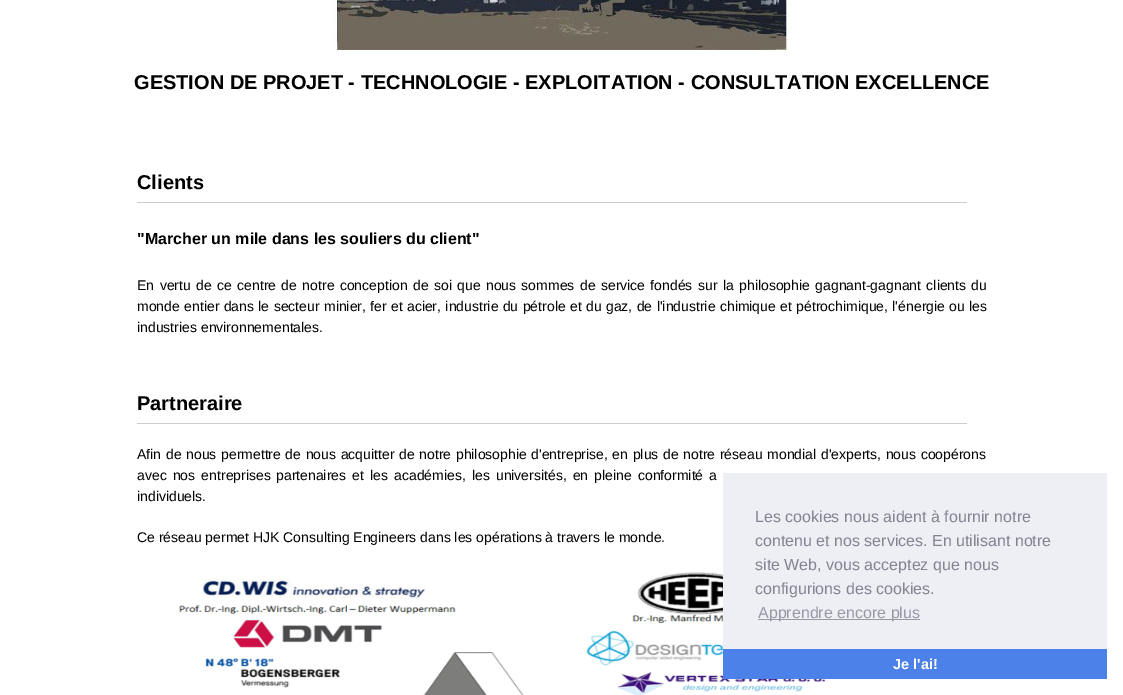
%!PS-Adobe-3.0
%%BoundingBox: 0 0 1123 695
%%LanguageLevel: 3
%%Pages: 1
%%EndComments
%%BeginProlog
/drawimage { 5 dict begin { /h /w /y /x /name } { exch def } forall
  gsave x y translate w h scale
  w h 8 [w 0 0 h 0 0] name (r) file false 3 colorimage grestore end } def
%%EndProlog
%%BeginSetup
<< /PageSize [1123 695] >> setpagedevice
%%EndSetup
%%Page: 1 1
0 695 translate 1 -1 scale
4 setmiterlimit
1 setgray
0 0 1123 695 rectfill
(images/1.raw) 333 0 458 50 drawimage
0.8 setgray
137 202 830 1 rectfill
137 423 830 1 rectfill
(images/2.raw) 179 572 647 123 drawimage
0.929 0.937 0.961 setrgbcolor
723 473 384 176 rectfill
0.596 0.6 0.647 setrgbcolor
758 619 162 1 rectfill
0.294 0.506 0.91 setrgbcolor
723 649 384 30 rectfill
/LiberationSans-Bold [20 0 0 -20 0 0] selectfont
0 setgray
134 89 moveto (GESTION DE PROJET - TECHNOLOGIE - EXPLOITATION - CONSULTATION EXCELLENCE) show
137 189 moveto (Clients) show
/LiberationSans-Bold [16 0 0 -16 0 0] selectfont
137 244 moveto ("Marcher un mile dans les souliers du client") show
/LiberationSans-Regular [14 0 0 -14 0 0] selectfont
137 290 moveto 1.5 0 32 (En vertu de ce centre de notre conception de soi que nous sommes de service fondés sur la philosophie gagnant-gagnant clients du) widthshow
137 311 moveto 0.5 0 32 (monde entier dans le secteur minier,) widthshow
370 311 moveto 0.5 0 32 (fer et acier, industrie du pétrole et du gaz, de l'industrie chimique et pétrochimique, l'énergie ou les) widthshow
137 332 moveto (industries environnementales.) show
/LiberationSans-Bold [20 0 0 -20 0 0] selectfont
137 410 moveto (Partneraire) show
/LiberationSans-Regular [14 0 0 -14 0 0] selectfont
137 459 moveto 0.75 0 32 (Afin de nous permettre de nous acquitter de notre philosophie d'entreprise, en plus de notre réseau mondial d'experts, nous coopérons) widthshow
137 480 moveto 2.25 0 32 (avec nos entreprises) widthshow
276 480 moveto 2.25 0 32 (partenaires et les académies, les universités, en pleine conformité a) widthshow
137 501 moveto (individuels.) show
137 542 moveto (Ce réseau permet HJK Consulting Engineers dans les opérations à travers le monde.) show
/LiberationSans-Regular [16 0 0 -16 0 0] selectfont
0.514 0.514 0.569 setrgbcolor
755 522 moveto (Les cookies nous aident à fournir notre) show
755 546 moveto (contenu et nos services. En utilisant notre) show
755 570 moveto (site Web, vous acceptez que nous) show
755 594 moveto (configurions des cookies.) show
0.596 0.6 0.647 setrgbcolor
758 618 moveto (Apprendre encore plus) show
/LiberationSans-Bold [14.5 0 0 -14.5 0 0] selectfont
1 setgray
893 669 moveto (Je l'ai!) show
showpage
%%EOF
